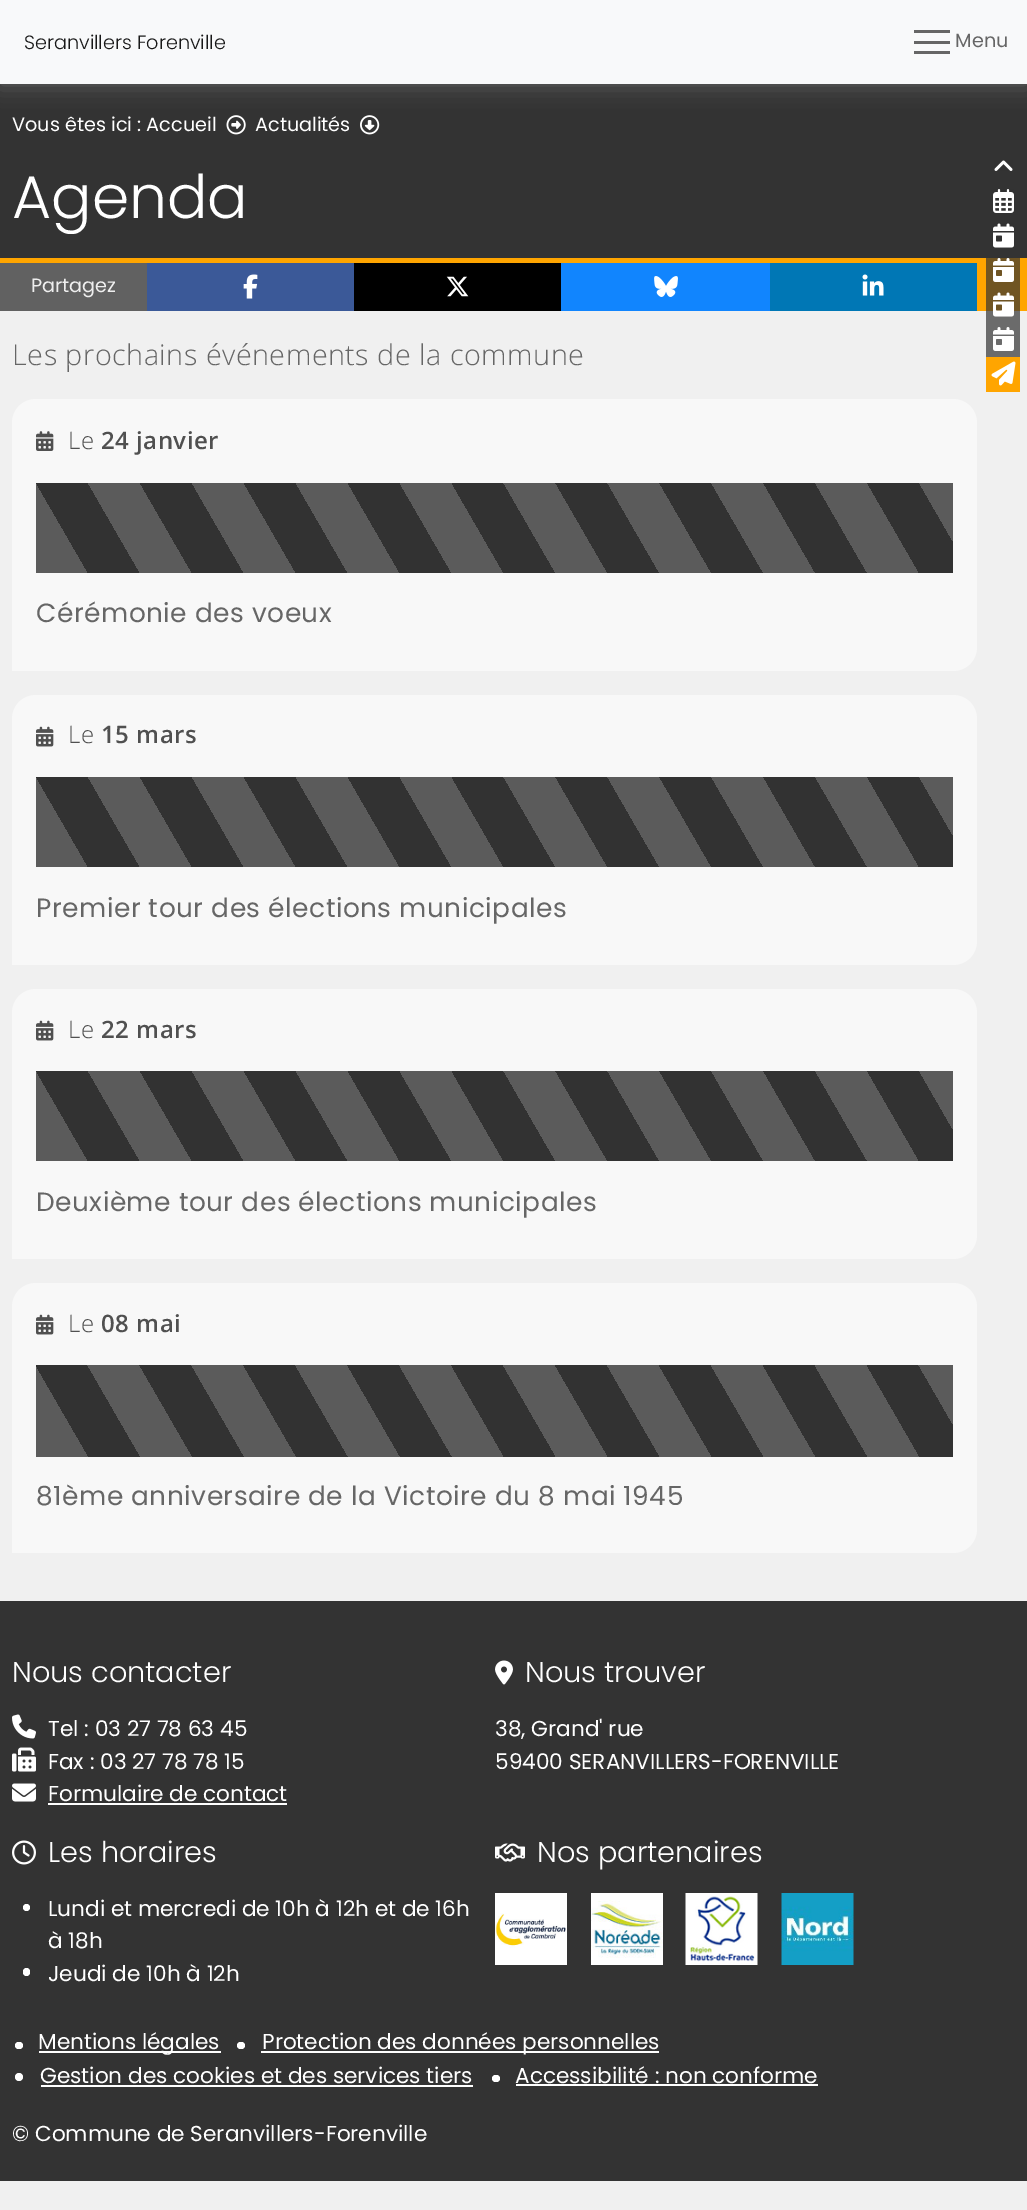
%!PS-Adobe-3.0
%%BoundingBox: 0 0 1027 2210
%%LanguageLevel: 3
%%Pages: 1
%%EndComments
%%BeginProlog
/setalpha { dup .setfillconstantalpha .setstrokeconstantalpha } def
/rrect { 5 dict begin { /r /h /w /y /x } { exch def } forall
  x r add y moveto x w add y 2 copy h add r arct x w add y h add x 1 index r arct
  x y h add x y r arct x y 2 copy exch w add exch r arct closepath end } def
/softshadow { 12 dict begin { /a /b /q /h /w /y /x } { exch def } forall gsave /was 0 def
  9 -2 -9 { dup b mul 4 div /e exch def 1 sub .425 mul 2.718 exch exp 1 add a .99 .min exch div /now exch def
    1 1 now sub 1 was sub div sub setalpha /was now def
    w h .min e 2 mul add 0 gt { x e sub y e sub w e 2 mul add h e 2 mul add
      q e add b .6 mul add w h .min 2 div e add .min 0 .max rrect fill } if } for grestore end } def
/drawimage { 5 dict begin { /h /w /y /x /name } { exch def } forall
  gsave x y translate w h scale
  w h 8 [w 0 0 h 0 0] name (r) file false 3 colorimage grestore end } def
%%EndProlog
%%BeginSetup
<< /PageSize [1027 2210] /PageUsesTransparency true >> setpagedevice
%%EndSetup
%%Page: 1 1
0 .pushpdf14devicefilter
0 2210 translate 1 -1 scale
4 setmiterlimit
0.941 setgray
0 0 1027 2210 rectfill
0.42 setgray
986 311 34 46 rectfill
0.2 setgray
0 84 1027 174 rectfill
(images/1.raw) 226 115 20 20 drawimage
(images/2.raw) 360 115 20 20 drawimage
0.4 setgray
0 0 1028 84 0 11 1 softshadow
0.973 0.976 0.98 setrgbcolor
0 0 1027 84 rectfill
0.4 setgray
914 30 36 3 rectfill
914 41 36 3 rectfill
914 51 36 3 rectfill
1 0.647 0 setrgbcolor
0 258 977 5 rectfill
977 258 50 53 rectfill
0.439 0.333 0.137 setrgbcolor
986 258 34 53 rectfill
0.38 setgray
0 263 147 48 rectfill
0.231 0.349 0.596 setrgbcolor
147 263 207 48 rectfill
(images/3.raw) 243 274 15 25 drawimage
0 setgray
354 263 207 48 rectfill
(images/4.raw) 446 276 23 21 drawimage
0.067 0.522 0.996 setrgbcolor
561 263 209 48 rectfill
(images/5.raw) 654 276 24 21 drawimage
0 0.467 0.71 setrgbcolor
770 263 207 48 rectfill
(images/6.raw) 862 274 22 22 drawimage
(images/7.raw) 994 160 19 11 drawimage
(images/8.raw) 993 189 21 24 drawimage
(images/9.raw) 993 223 21 25 drawimage
(images/10.raw) 993 258 21 24 drawimage
(images/11.raw) 993 292 21 25 drawimage
(images/12.raw) 993 327 21 24 drawimage
1 0.647 0 setrgbcolor
986 357 34 35 rectfill
(images/13.raw) 991 361 25 25 drawimage
0.973 setgray
newpath 36 399 moveto 953 399 lineto 966.5 399 977 409.5 977 423 curveto 977 647 lineto 977 660.5 966.5 671 953 671 curveto 12 671 lineto 12 423 lineto 12 409.5 22.5 399 36 399 curveto closepath fill
(images/14.raw) 36 431 18 20 drawimage
gsave newpath 36 483 moveto 953 483 lineto 953 573 lineto 36 573 lineto closepath clip newpath
<< /ShadingType 2 /ColorSpace /DeviceRGB /Coords [131 738 910 288] /Extend [true true] /Function << /FunctionType 3 /Domain [0 1] /Functions [<< /FunctionType 2 /Domain [0 1] /C0 [0.357 0.357 0.357] /C1 [0.357 0.357 0.357] /N 1 >> << /FunctionType 2 /Domain [0 1] /C0 [0.196 0.196 0.196] /C1 [0.196 0.196 0.196] /N 1 >> << /FunctionType 2 /Domain [0 1] /C0 [0.357 0.357 0.357] /C1 [0.357 0.357 0.357] /N 1 >> << /FunctionType 2 /Domain [0 1] /C0 [0.196 0.196 0.196] /C1 [0.196 0.196 0.196] /N 1 >> << /FunctionType 2 /Domain [0 1] /C0 [0.357 0.357 0.357] /C1 [0.357 0.357 0.357] /N 1 >> << /FunctionType 2 /Domain [0 1] /C0 [0.196 0.196 0.196] /C1 [0.196 0.196 0.196] /N 1 >> << /FunctionType 2 /Domain [0 1] /C0 [0.357 0.357 0.357] /C1 [0.357 0.357 0.357] /N 1 >> << /FunctionType 2 /Domain [0 1] /C0 [0.196 0.196 0.196] /C1 [0.196 0.196 0.196] /N 1 >> << /FunctionType 2 /Domain [0 1] /C0 [0.357 0.357 0.357] /C1 [0.357 0.357 0.357] /N 1 >> << /FunctionType 2 /Domain [0 1] /C0 [0.196 0.196 0.196] /C1 [0.196 0.196 0.196] /N 1 >> << /FunctionType 2 /Domain [0 1] /C0 [0.357 0.357 0.357] /C1 [0.357 0.357 0.357] /N 1 >> << /FunctionType 2 /Domain [0 1] /C0 [0.196 0.196 0.196] /C1 [0.196 0.196 0.196] /N 1 >> << /FunctionType 2 /Domain [0 1] /C0 [0.357 0.357 0.357] /C1 [0.357 0.357 0.357] /N 1 >> << /FunctionType 2 /Domain [0 1] /C0 [0.196 0.196 0.196] /C1 [0.196 0.196 0.196] /N 1 >> << /FunctionType 2 /Domain [0 1] /C0 [0.357 0.357 0.357] /C1 [0.357 0.357 0.357] /N 1 >> << /FunctionType 2 /Domain [0 1] /C0 [0.196 0.196 0.196] /C1 [0.196 0.196 0.196] /N 1 >> << /FunctionType 2 /Domain [0 1] /C0 [0.357 0.357 0.357] /C1 [0.357 0.357 0.357] /N 1 >> << /FunctionType 2 /Domain [0 1] /C0 [0.196 0.196 0.196] /C1 [0.196 0.196 0.196] /N 1 >> << /FunctionType 2 /Domain [0 1] /C0 [0.357 0.357 0.357] /C1 [0.357 0.357 0.357] /N 1 >> << /FunctionType 2 /Domain [0 1] /C0 [0.196 0.196 0.196] /C1 [0.196 0.196 0.196] /N 1 >>] /Bounds [0.05 0.1 0.15 0.2 0.25 0.3 0.35 0.4 0.45 0.5 0.55 0.6 0.65 0.7 0.75 0.8 0.85 0.9 0.95] /Encode [0 1 0 1 0 1 0 1 0 1 0 1 0 1 0 1 0 1 0 1 0 1 0 1 0 1 0 1 0 1 0 1 0 1 0 1 0 1 0 1] >> >> shfill grestore
newpath 36 695 moveto 953 695 lineto 966.5 695 977 705.5 977 719 curveto 977 941 lineto 977 954.5 966.5 965 953 965 curveto 12 965 lineto 12 719 lineto 12 705.5 22.5 695 36 695 curveto closepath fill
(images/15.raw) 36 726 18 21 drawimage
gsave newpath 36 777 moveto 953 777 lineto 953 867 lineto 36 867 lineto closepath clip newpath
<< /ShadingType 2 /ColorSpace /DeviceRGB /Coords [131 1032 910 582] /Extend [true true] /Function << /FunctionType 3 /Domain [0 1] /Functions [<< /FunctionType 2 /Domain [0 1] /C0 [0.357 0.357 0.357] /C1 [0.357 0.357 0.357] /N 1 >> << /FunctionType 2 /Domain [0 1] /C0 [0.196 0.196 0.196] /C1 [0.196 0.196 0.196] /N 1 >> << /FunctionType 2 /Domain [0 1] /C0 [0.357 0.357 0.357] /C1 [0.357 0.357 0.357] /N 1 >> << /FunctionType 2 /Domain [0 1] /C0 [0.196 0.196 0.196] /C1 [0.196 0.196 0.196] /N 1 >> << /FunctionType 2 /Domain [0 1] /C0 [0.357 0.357 0.357] /C1 [0.357 0.357 0.357] /N 1 >> << /FunctionType 2 /Domain [0 1] /C0 [0.196 0.196 0.196] /C1 [0.196 0.196 0.196] /N 1 >> << /FunctionType 2 /Domain [0 1] /C0 [0.357 0.357 0.357] /C1 [0.357 0.357 0.357] /N 1 >> << /FunctionType 2 /Domain [0 1] /C0 [0.196 0.196 0.196] /C1 [0.196 0.196 0.196] /N 1 >> << /FunctionType 2 /Domain [0 1] /C0 [0.357 0.357 0.357] /C1 [0.357 0.357 0.357] /N 1 >> << /FunctionType 2 /Domain [0 1] /C0 [0.196 0.196 0.196] /C1 [0.196 0.196 0.196] /N 1 >> << /FunctionType 2 /Domain [0 1] /C0 [0.357 0.357 0.357] /C1 [0.357 0.357 0.357] /N 1 >> << /FunctionType 2 /Domain [0 1] /C0 [0.196 0.196 0.196] /C1 [0.196 0.196 0.196] /N 1 >> << /FunctionType 2 /Domain [0 1] /C0 [0.357 0.357 0.357] /C1 [0.357 0.357 0.357] /N 1 >> << /FunctionType 2 /Domain [0 1] /C0 [0.196 0.196 0.196] /C1 [0.196 0.196 0.196] /N 1 >> << /FunctionType 2 /Domain [0 1] /C0 [0.357 0.357 0.357] /C1 [0.357 0.357 0.357] /N 1 >> << /FunctionType 2 /Domain [0 1] /C0 [0.196 0.196 0.196] /C1 [0.196 0.196 0.196] /N 1 >> << /FunctionType 2 /Domain [0 1] /C0 [0.357 0.357 0.357] /C1 [0.357 0.357 0.357] /N 1 >> << /FunctionType 2 /Domain [0 1] /C0 [0.196 0.196 0.196] /C1 [0.196 0.196 0.196] /N 1 >> << /FunctionType 2 /Domain [0 1] /C0 [0.357 0.357 0.357] /C1 [0.357 0.357 0.357] /N 1 >> << /FunctionType 2 /Domain [0 1] /C0 [0.196 0.196 0.196] /C1 [0.196 0.196 0.196] /N 1 >>] /Bounds [0.05 0.1 0.15 0.2 0.25 0.3 0.35 0.4 0.45 0.5 0.55 0.6 0.65 0.7 0.75 0.8 0.85 0.9 0.95] /Encode [0 1 0 1 0 1 0 1 0 1 0 1 0 1 0 1 0 1 0 1 0 1 0 1 0 1 0 1 0 1 0 1 0 1 0 1 0 1 0 1] >> >> shfill grestore
newpath 36 989 moveto 953 989 lineto 966.5 989 977 999.5 977 1013 curveto 977 1235 lineto 977 1248.5 966.5 1259 953 1259 curveto 12 1259 lineto 12 1013 lineto 12 999.5 22.5 989 36 989 curveto closepath fill
(images/15.raw) 36 1020 18 21 drawimage
gsave newpath 36 1071 moveto 953 1071 lineto 953 1161 lineto 36 1161 lineto closepath clip newpath
<< /ShadingType 2 /ColorSpace /DeviceRGB /Coords [131 1326 910 876] /Extend [true true] /Function << /FunctionType 3 /Domain [0 1] /Functions [<< /FunctionType 2 /Domain [0 1] /C0 [0.357 0.357 0.357] /C1 [0.357 0.357 0.357] /N 1 >> << /FunctionType 2 /Domain [0 1] /C0 [0.196 0.196 0.196] /C1 [0.196 0.196 0.196] /N 1 >> << /FunctionType 2 /Domain [0 1] /C0 [0.357 0.357 0.357] /C1 [0.357 0.357 0.357] /N 1 >> << /FunctionType 2 /Domain [0 1] /C0 [0.196 0.196 0.196] /C1 [0.196 0.196 0.196] /N 1 >> << /FunctionType 2 /Domain [0 1] /C0 [0.357 0.357 0.357] /C1 [0.357 0.357 0.357] /N 1 >> << /FunctionType 2 /Domain [0 1] /C0 [0.196 0.196 0.196] /C1 [0.196 0.196 0.196] /N 1 >> << /FunctionType 2 /Domain [0 1] /C0 [0.357 0.357 0.357] /C1 [0.357 0.357 0.357] /N 1 >> << /FunctionType 2 /Domain [0 1] /C0 [0.196 0.196 0.196] /C1 [0.196 0.196 0.196] /N 1 >> << /FunctionType 2 /Domain [0 1] /C0 [0.357 0.357 0.357] /C1 [0.357 0.357 0.357] /N 1 >> << /FunctionType 2 /Domain [0 1] /C0 [0.196 0.196 0.196] /C1 [0.196 0.196 0.196] /N 1 >> << /FunctionType 2 /Domain [0 1] /C0 [0.357 0.357 0.357] /C1 [0.357 0.357 0.357] /N 1 >> << /FunctionType 2 /Domain [0 1] /C0 [0.196 0.196 0.196] /C1 [0.196 0.196 0.196] /N 1 >> << /FunctionType 2 /Domain [0 1] /C0 [0.357 0.357 0.357] /C1 [0.357 0.357 0.357] /N 1 >> << /FunctionType 2 /Domain [0 1] /C0 [0.196 0.196 0.196] /C1 [0.196 0.196 0.196] /N 1 >> << /FunctionType 2 /Domain [0 1] /C0 [0.357 0.357 0.357] /C1 [0.357 0.357 0.357] /N 1 >> << /FunctionType 2 /Domain [0 1] /C0 [0.196 0.196 0.196] /C1 [0.196 0.196 0.196] /N 1 >> << /FunctionType 2 /Domain [0 1] /C0 [0.357 0.357 0.357] /C1 [0.357 0.357 0.357] /N 1 >> << /FunctionType 2 /Domain [0 1] /C0 [0.196 0.196 0.196] /C1 [0.196 0.196 0.196] /N 1 >> << /FunctionType 2 /Domain [0 1] /C0 [0.357 0.357 0.357] /C1 [0.357 0.357 0.357] /N 1 >> << /FunctionType 2 /Domain [0 1] /C0 [0.196 0.196 0.196] /C1 [0.196 0.196 0.196] /N 1 >>] /Bounds [0.05 0.1 0.15 0.2 0.25 0.3 0.35 0.4 0.45 0.5 0.55 0.6 0.65 0.7 0.75 0.8 0.85 0.9 0.95] /Encode [0 1 0 1 0 1 0 1 0 1 0 1 0 1 0 1 0 1 0 1 0 1 0 1 0 1 0 1 0 1 0 1 0 1 0 1 0 1 0 1] >> >> shfill grestore
newpath 36 1283 moveto 953 1283 lineto 966.5 1283 977 1293.5 977 1307 curveto 977 1529 lineto 977 1542.5 966.5 1553 953 1553 curveto 12 1553 lineto 12 1307 lineto 12 1293.5 22.5 1283 36 1283 curveto closepath fill
(images/15.raw) 36 1314 18 21 drawimage
gsave newpath 36 1365 moveto 953 1365 lineto 953 1457 lineto 36 1457 lineto closepath clip newpath
<< /ShadingType 2 /ColorSpace /DeviceRGB /Coords [131 1621 910 1171] /Extend [true true] /Function << /FunctionType 3 /Domain [0 1] /Functions [<< /FunctionType 2 /Domain [0 1] /C0 [0.357 0.357 0.357] /C1 [0.357 0.357 0.357] /N 1 >> << /FunctionType 2 /Domain [0 1] /C0 [0.196 0.196 0.196] /C1 [0.196 0.196 0.196] /N 1 >> << /FunctionType 2 /Domain [0 1] /C0 [0.357 0.357 0.357] /C1 [0.357 0.357 0.357] /N 1 >> << /FunctionType 2 /Domain [0 1] /C0 [0.196 0.196 0.196] /C1 [0.196 0.196 0.196] /N 1 >> << /FunctionType 2 /Domain [0 1] /C0 [0.357 0.357 0.357] /C1 [0.357 0.357 0.357] /N 1 >> << /FunctionType 2 /Domain [0 1] /C0 [0.196 0.196 0.196] /C1 [0.196 0.196 0.196] /N 1 >> << /FunctionType 2 /Domain [0 1] /C0 [0.357 0.357 0.357] /C1 [0.357 0.357 0.357] /N 1 >> << /FunctionType 2 /Domain [0 1] /C0 [0.196 0.196 0.196] /C1 [0.196 0.196 0.196] /N 1 >> << /FunctionType 2 /Domain [0 1] /C0 [0.357 0.357 0.357] /C1 [0.357 0.357 0.357] /N 1 >> << /FunctionType 2 /Domain [0 1] /C0 [0.196 0.196 0.196] /C1 [0.196 0.196 0.196] /N 1 >> << /FunctionType 2 /Domain [0 1] /C0 [0.357 0.357 0.357] /C1 [0.357 0.357 0.357] /N 1 >> << /FunctionType 2 /Domain [0 1] /C0 [0.196 0.196 0.196] /C1 [0.196 0.196 0.196] /N 1 >> << /FunctionType 2 /Domain [0 1] /C0 [0.357 0.357 0.357] /C1 [0.357 0.357 0.357] /N 1 >> << /FunctionType 2 /Domain [0 1] /C0 [0.196 0.196 0.196] /C1 [0.196 0.196 0.196] /N 1 >> << /FunctionType 2 /Domain [0 1] /C0 [0.357 0.357 0.357] /C1 [0.357 0.357 0.357] /N 1 >> << /FunctionType 2 /Domain [0 1] /C0 [0.196 0.196 0.196] /C1 [0.196 0.196 0.196] /N 1 >> << /FunctionType 2 /Domain [0 1] /C0 [0.357 0.357 0.357] /C1 [0.357 0.357 0.357] /N 1 >> << /FunctionType 2 /Domain [0 1] /C0 [0.196 0.196 0.196] /C1 [0.196 0.196 0.196] /N 1 >> << /FunctionType 2 /Domain [0 1] /C0 [0.357 0.357 0.357] /C1 [0.357 0.357 0.357] /N 1 >> << /FunctionType 2 /Domain [0 1] /C0 [0.196 0.196 0.196] /C1 [0.196 0.196 0.196] /N 1 >>] /Bounds [0.05 0.1 0.15 0.2 0.25 0.3 0.35 0.4 0.45 0.5 0.55 0.6 0.65 0.7 0.75 0.8 0.85 0.9 0.95] /Encode [0 1 0 1 0 1 0 1 0 1 0 1 0 1 0 1 0 1 0 1 0 1 0 1 0 1 0 1 0 1 0 1 0 1 0 1 0 1 0 1] >> >> shfill grestore
0.2 setgray
0 1601 1027 580 rectfill
(images/16.raw) 12 1714 24 25 drawimage
(images/17.raw) 12 1747 24 25 drawimage
(images/18.raw) 12 1783 24 19 drawimage
1 setgray
48 1803 239 2 rectfill
(images/19.raw) 495 1660 18 25 drawimage
(images/20.raw) 12 1840 24 25 drawimage
newpath 26.5 1907.5 3.5 0 360 arc closepath fill
23 1968 7 8 3.5 rrect fill
(images/21.raw) 495 1843 30 19 drawimage
(images/22.raw) 495 1893 72 72 drawimage
(images/23.raw) 591 1893 72 72 drawimage
(images/24.raw) 685 1893 73 72 drawimage
(images/25.raw) 781 1893 73 72 drawimage
15 2042 8 7 3.5 rrect fill
39 2051 182 2 rectfill
237 2042 8 7 3.5 rrect fill
261 2051 398 2 rectfill
newpath 19 2077 4 0 360 arc closepath fill
41 2085 432 2 rectfill
492 2075 8 7 3.5 rrect fill
516 2084 302 2 rectfill
/Poppins-Light [19.25 0 0 -19.25 0 0] selectfont
0.098 setgray
24 49 moveto (Seranvillers Forenville) show
/Poppins-Regular [19.25 0 0 -19.25 0 0] selectfont
0.4 setgray
955 47 moveto (Menu) show
1 setgray
12 131 moveto (Vous êtes ici : Accueil) show
255 131 moveto (Actualités) show
/Poppins-Light [60 0 0 -60 0 0] selectfont
12 218 moveto (Agenda) show
/Poppins-Regular [19.25 0 0 -19.25 0 0] selectfont
0.933 setgray
31 292 moveto (Partagez) show
/OpenSans-Light [28.75 0 0 -28.75 0 0] selectfont
0.4 setgray
12 365 moveto 0.5 0 (Les prochains événements de la commune) ashow
/OpenSans-Light [24 0 0 -24 0 0] selectfont
0.314 setgray
68 449 moveto 0.5 0 (Le) ashow
/OpenSans-SemiBold [24 0 0 -24 0 0] selectfont
101 449 moveto 0.5 0 (24 janvier) ashow
/Poppins-Regular [26.4 0 0 -26.4 0 0] selectfont
0.4 setgray
36 622 moveto 0.5 0 (Cérémonie des voeux) ashow
/OpenSans-Light [24 0 0 -24 0 0] selectfont
0.314 setgray
68 743 moveto 0.5 0 (Le) ashow
/OpenSans-SemiBold [24 0 0 -24 0 0] selectfont
101 743 moveto 0.5 0 (15 mars) ashow
/Poppins-Regular [26.4 0 0 -26.4 0 0] selectfont
0.4 setgray
36 917 moveto 0.5 0 (Premier tour des élections municipales) ashow
/OpenSans-Light [24 0 0 -24 0 0] selectfont
0.314 setgray
68 1038 moveto 0.5 0 (Le) ashow
/OpenSans-SemiBold [24 0 0 -24 0 0] selectfont
101 1038 moveto 0.5 0 (22 mars) ashow
/Poppins-Regular [26.4 0 0 -26.4 0 0] selectfont
0.4 setgray
36 1211 moveto 0.5 0 (Deuxième tour des élections municipales) ashow
/OpenSans-Light [24 0 0 -24 0 0] selectfont
0.314 setgray
68 1332 moveto 0.5 0 (Le) ashow
/OpenSans-SemiBold [24 0 0 -24 0 0] selectfont
101 1332 moveto 0.5 0 (08 mai) ashow
/Poppins-Regular [26.4 0 0 -26.4 0 0] selectfont
0.4 setgray
36 1505 moveto 0.5 0 (81ème anniversaire de la Victoire du 8 mai 1945) ashow
/Poppins-Light [28.75 0 0 -28.75 0 0] selectfont
1 setgray
12 1682 moveto (Nous contacter) show
/Poppins-Regular [21.6 0 0 -21.6 0 0] selectfont
48 1736 moveto (Tel : 03 27 78 63 45) show
48 1769 moveto (Fax : 03 27 78 78 15) show
48 1801 moveto (Formulaire de contact) show
/Poppins-Light [28.75 0 0 -28.75 0 0] selectfont
525 1682 moveto (Nous trouver) show
/Poppins-Regular [21.6 0 0 -21.6 0 0] selectfont
495 1736 moveto (38, Grand' rue) show
495 1769 moveto (59400 SERANVILLERS-FORENVILLE) show
/Poppins-Light [28.75 0 0 -28.75 0 0] selectfont
48 1862 moveto (Les horaires) show
/Poppins-Regular [21.6 0 0 -21.6 0 0] selectfont
48 1916 moveto (Lundi et mercredi de 10h à 12h et de 16h) show
48 1948 moveto (à 18h) show
48 1981 moveto (Jeudi de 10h à 12h) show
/Poppins-Light [28.75 0 0 -28.75 0 0] selectfont
537 1862 moveto (Nos partenaires) show
/Poppins-Regular [21.6 0 0 -21.6 0 0] selectfont
38 2049 moveto (Mentions légales) show
262 2049 moveto (Protection des données personnelles) show
40 2083 moveto (Gestion des cookies et des services tiers) show
515 2083 moveto (Accessibilité : non conforme) show
12 2141 moveto (© Commune de Seranvillers-Forenville) show
.poppdf14devicefilter showpage
%%EOF
